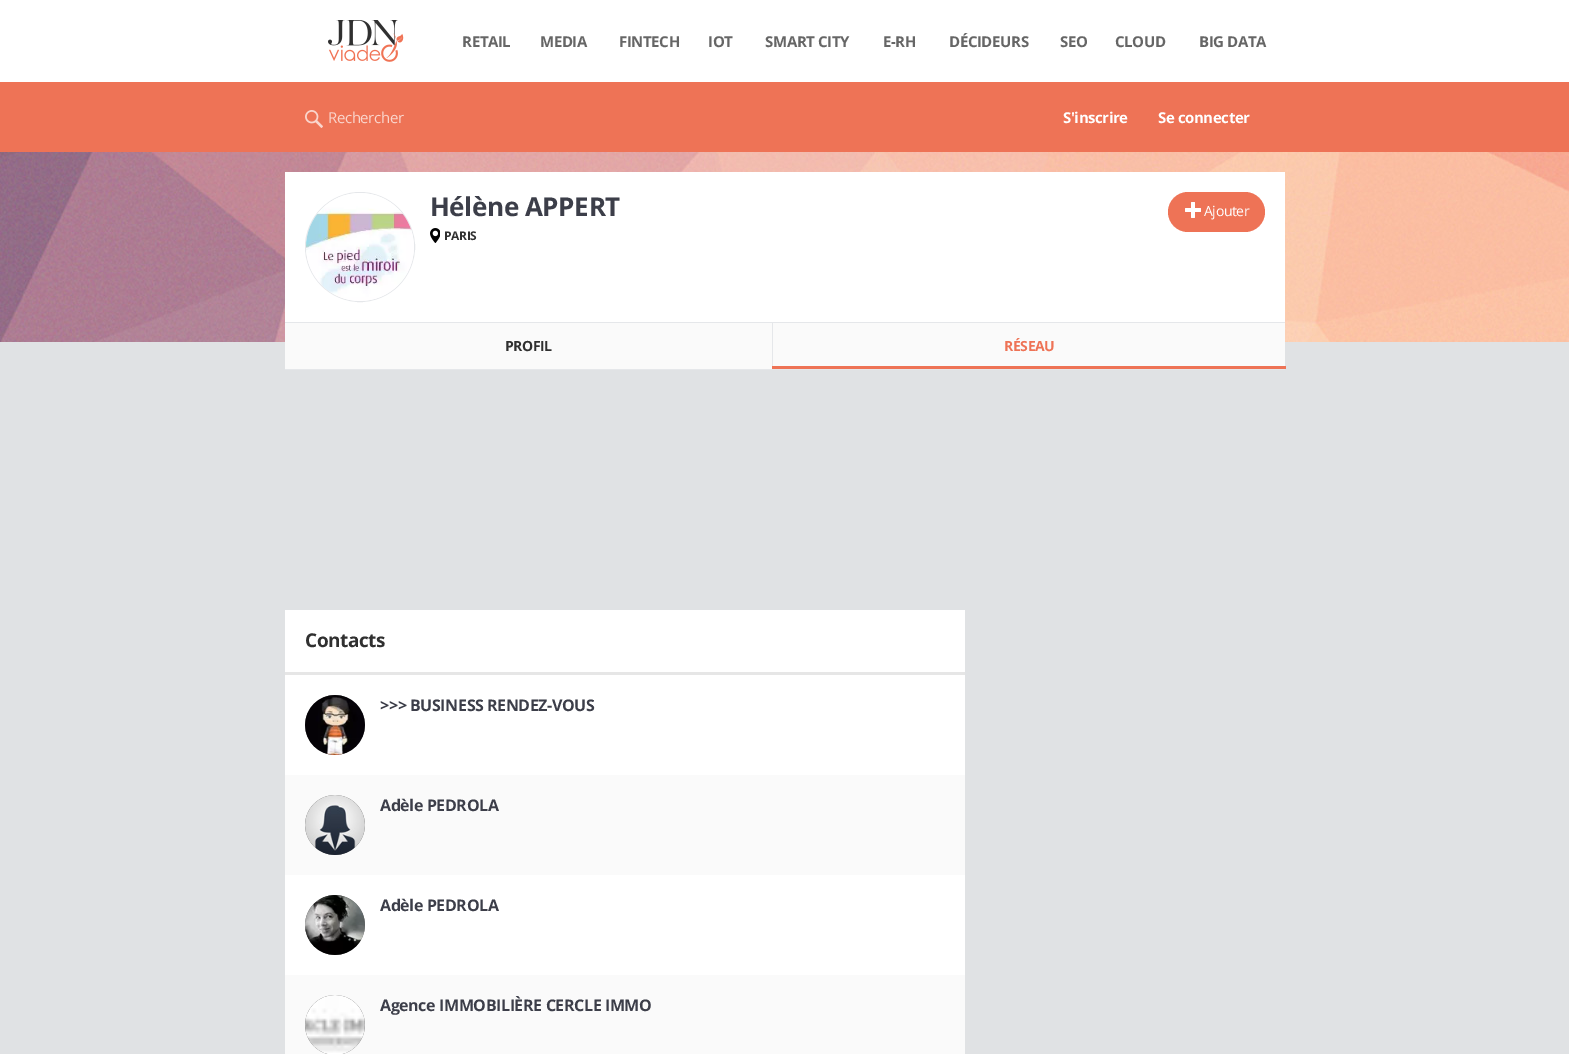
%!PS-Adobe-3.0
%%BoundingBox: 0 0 1569 1054
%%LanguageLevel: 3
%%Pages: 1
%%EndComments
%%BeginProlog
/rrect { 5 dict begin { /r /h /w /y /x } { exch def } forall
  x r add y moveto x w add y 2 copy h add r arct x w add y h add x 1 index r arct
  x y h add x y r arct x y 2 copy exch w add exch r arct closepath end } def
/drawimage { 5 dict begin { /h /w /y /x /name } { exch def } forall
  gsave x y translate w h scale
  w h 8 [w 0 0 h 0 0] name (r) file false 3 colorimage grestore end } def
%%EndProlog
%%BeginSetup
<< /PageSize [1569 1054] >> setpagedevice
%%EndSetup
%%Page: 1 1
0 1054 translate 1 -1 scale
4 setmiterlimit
1 setgray
0 0 1569 1054 rectfill
(images/1.raw) 328 20 76 42 drawimage
0.933 0.451 0.337 setrgbcolor
0 82 1569 70 rectfill
(images/2.raw) 305 110 18 18 drawimage
(images/3.raw) 0 152 1569 190 drawimage
1 setgray
285 172 1000 150 rectfill
0.898 0.906 0.918 setrgbcolor
newpath 360 247 54.5 0 360 arc closepath stroke
(images/4.raw) 306 193 108 108 drawimage
0.933 0.451 0.337 setrgbcolor
1168 192 97 40 20 rrect fill
(images/5.raw) 1185 202 16 16 drawimage
(images/6.raw) 430 228 10 15 drawimage
0.898 0.906 0.918 setrgbcolor
285 322 1000 1 rectfill
0.878 0.886 0.894 setrgbcolor
0 342 1569 712 rectfill
0.898 0.906 0.918 setrgbcolor
285 369 1000 1 rectfill
0.98 setgray
285 323 487 46 rectfill
0.898 0.906 0.918 setrgbcolor
772 323 1 46 rectfill
0.98 setgray
773 323 512 43 rectfill
0.933 0.451 0.337 setrgbcolor
772 366 514 3 rectfill
1 setgray
285 610 680 365 rectfill
0.902 setgray
285 672 680 3 rectfill
0.4 setgray
newpath 335 725 30 0 360 arc closepath fill
(images/7.raw) 305 695 60 60 drawimage
0.98 setgray
285 775 680 100 rectfill
0.4 setgray
newpath 335 825 30 0 360 arc closepath fill
(images/8.raw) 305 795 60 60 drawimage
newpath 335 925 30 0 360 arc closepath fill
(images/9.raw) 305 895 60 60 drawimage
0.98 setgray
285 975 680 79 rectfill
0.4 setgray
newpath 335 1025 30 0 360 arc closepath fill
(images/10.raw) 305 995 60 59 drawimage
/OpenSans-Bold [15 0 0 -15 0 0] selectfont
462 47 moveto -0.4 0 (RETAIL) ashow
540 47 moveto -0.4 0 (MEDIA) ashow
619 47 moveto -0.4 0 (FINTECH) ashow
708 47 moveto -0.4 0 (IOT) ashow
765 47 moveto -0.4 0 (SMART CITY) ashow
883 47 moveto -0.4 0 (E-RH) ashow
949 47 moveto -0.4 0 (DÉCIDEURS) ashow
1060 47 moveto -0.4 0 (SEO) ashow
1115 47 moveto -0.4 0 (CLOUD) ashow
1199 47 moveto -0.4 0 (BIG DATA) ashow
/OpenSans-Regular [15 0 0 -15 0 0] selectfont
0.98 0.835 0.8 setrgbcolor
328 123 moveto -0.4 0 (Rechercher) ashow
/OpenSans-Bold [15 0 0 -15 0 0] selectfont
1 setgray
1063 123 moveto -0.4 0 (S'inscrire) ashow
1158 123 moveto -0.4 0 (Se connecter) ashow
/OpenSans-Bold [26 0 0 -26 0 0] selectfont
0.235 0.243 0.286 setrgbcolor
430 216 moveto -0.4 0 (Hélène APPERT) ashow
/OpenSans-Regular [14 0 0 -14 0 0] selectfont
1 setgray
1204 216 moveto -0.4 0 (Ajouter) ashow
/OpenSans-Bold [12 0 0 -12 0 0] selectfont
0.188 setgray
444 240 moveto -0.4 0 (PARIS) ashow
/OpenSans-Bold [14 0 0 -14 0 0] selectfont
505 351 moveto -0.4 0 (PROFIL) ashow
0.933 0.451 0.337 setrgbcolor
1004 351 moveto -0.4 0 (RÉSEAU) ashow
/OpenSans-Bold [19 0 0 -19 0 0] selectfont
0.188 setgray
305 647 moveto -0.4 0 (Contacts) ashow
/OpenSans-Bold [16 0 0 -16 0 0] selectfont
0.235 0.243 0.286 setrgbcolor
380 711 moveto -0.4 0 (>>> BUSINESS RENDEZ-VOUS) ashow
380 811 moveto -0.4 0 (Adèle PEDROLA) ashow
380 911 moveto -0.4 0 (Adèle PEDROLA) ashow
380 1011 moveto -0.4 0 (Agence IMMOBILIÈRE CERCLE IMMO) ashow
showpage
%%EOF
